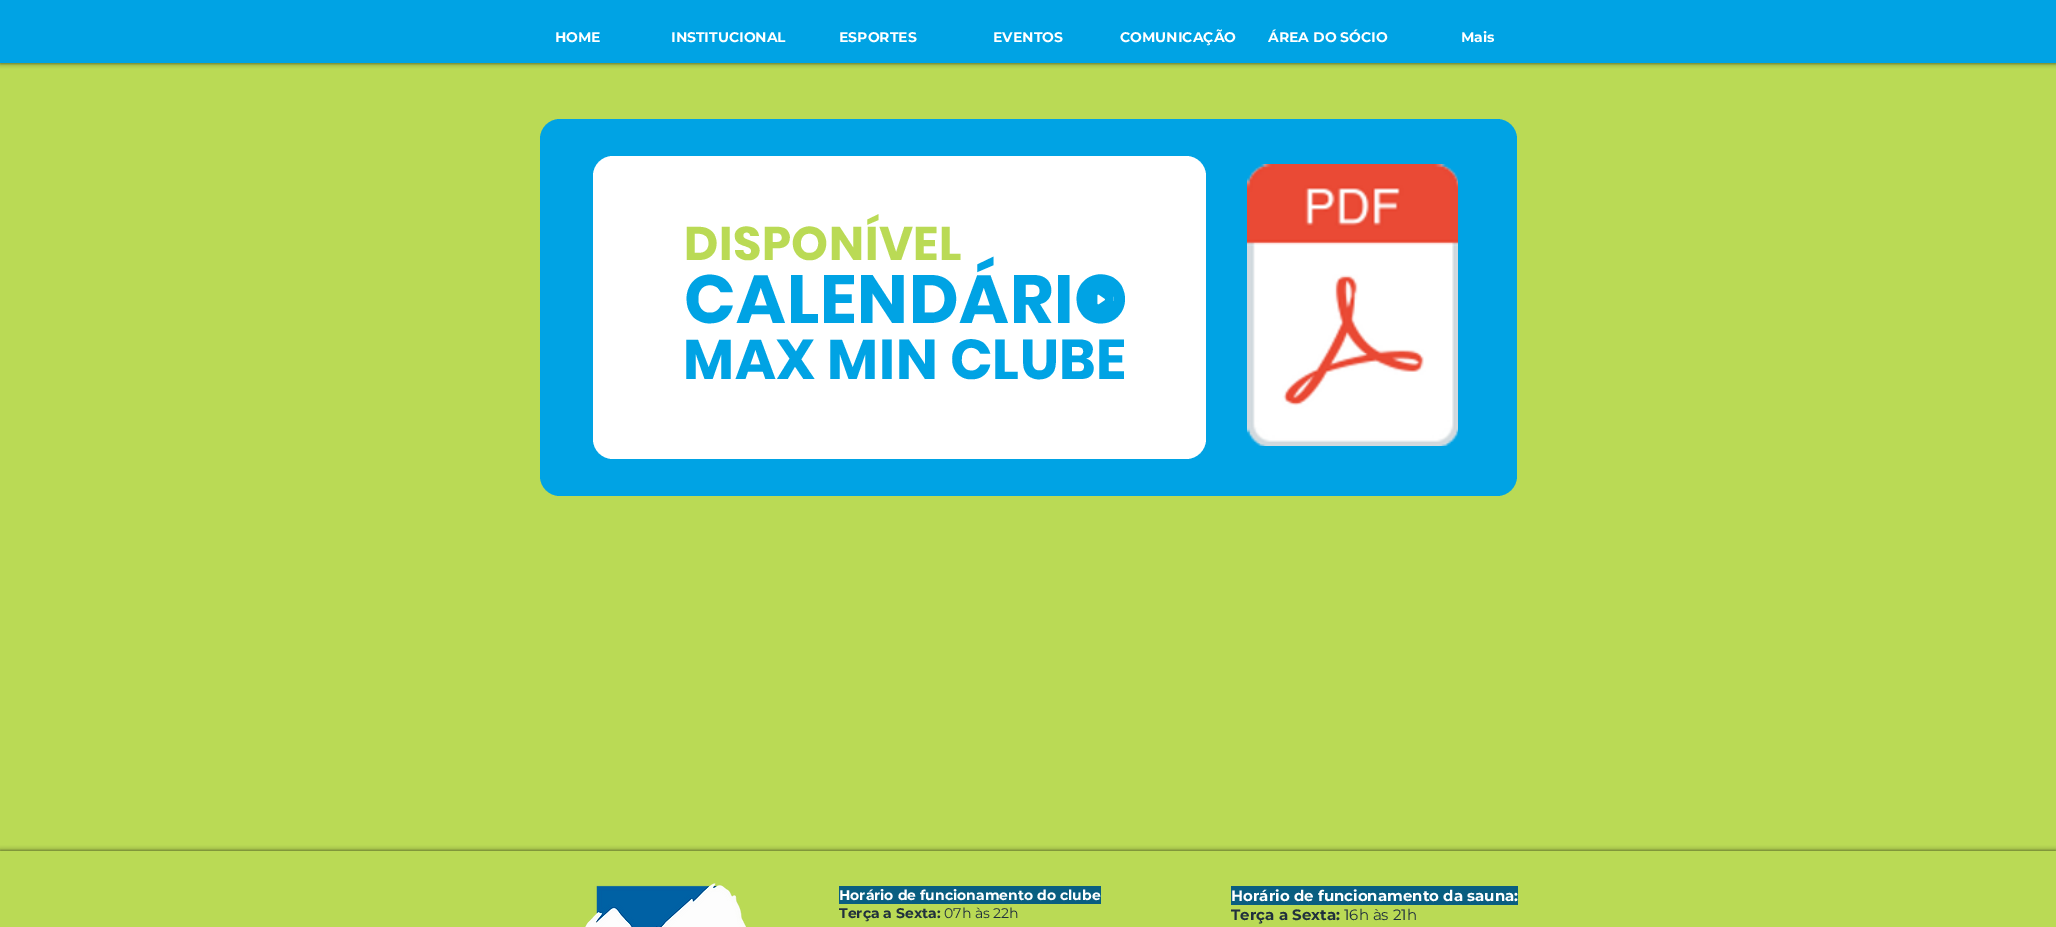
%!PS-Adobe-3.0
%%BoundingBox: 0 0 2056 927
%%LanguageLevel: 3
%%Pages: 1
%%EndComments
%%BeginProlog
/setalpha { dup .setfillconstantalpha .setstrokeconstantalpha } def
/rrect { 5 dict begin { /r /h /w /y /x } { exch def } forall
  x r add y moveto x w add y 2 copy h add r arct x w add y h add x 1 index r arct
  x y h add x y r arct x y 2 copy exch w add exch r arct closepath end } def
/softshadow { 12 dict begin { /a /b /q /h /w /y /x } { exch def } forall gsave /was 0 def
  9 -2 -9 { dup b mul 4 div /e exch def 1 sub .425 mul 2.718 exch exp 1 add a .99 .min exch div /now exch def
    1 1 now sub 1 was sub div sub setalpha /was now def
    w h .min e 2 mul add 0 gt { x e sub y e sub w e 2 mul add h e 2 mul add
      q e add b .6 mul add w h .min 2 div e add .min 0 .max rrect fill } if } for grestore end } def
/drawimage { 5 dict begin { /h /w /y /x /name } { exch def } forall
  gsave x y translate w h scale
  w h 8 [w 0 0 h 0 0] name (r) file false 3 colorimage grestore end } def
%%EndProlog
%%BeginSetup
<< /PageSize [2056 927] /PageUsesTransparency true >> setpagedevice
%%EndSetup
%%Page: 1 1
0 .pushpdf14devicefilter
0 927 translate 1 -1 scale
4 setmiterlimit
0.729 0.855 0.333 setrgbcolor
0 0 2056 927 rectfill
0 setgray
0 0 2056 63 0 2.5 0.7 softshadow
0 0.639 0.894 setrgbcolor
0 0 2056 63 rectfill
540 119 977 377 20 rrect fill
1 setgray
593 156 613 303 20 rrect fill
(images/1.raw) 1247 164 211 282 drawimage
0 setgray
0 851 2056 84 0 2.5 0.7 softshadow
0.729 0.855 0.333 setrgbcolor
0 851 2056 76 rectfill
(images/3.raw) 585 883 161 44 drawimage
0.035 0.369 0.502 setrgbcolor
839 886 262 18 rectfill
1231 886 287 19 rectfill
/Montserrat-Bold [14 0 0 -14 0 0] selectfont
1 setgray
555 42 moveto (HOME) show
671 42 moveto (INSTITUCIONAL) show
839 42 moveto (ESPORTES) show
993 42 moveto (EVENTOS) show
1120 42 moveto (COMUNICAÇÃO) show
1268 42 moveto (ÁREA DO SÓCIO) show
1461 42 moveto (Mais) show
/Poppins-Bold [47 0 0 -47 0 0] selectfont
0.729 0.855 0.333 setrgbcolor
684 260 moveto 0.5 0 (DISPONÍVEL) ashow
/Poppins-Bold [68 0 0 -68 0 0] selectfont
0 0.639 0.894 setrgbcolor
684 323 moveto 0.75 0 (CALENDÁRIO) ashow
(images/2.raw) 1088 285 25 28 drawimage
/Poppins-Bold [56 0 0 -56 0 0] selectfont
683 379 moveto 0.5 0 (MAX MIN CLUBE) ashow
/Montserrat-Bold [14 0 0 -14 0 0] selectfont
1 setgray
839 900 moveto (Horário de funcionamento do clube) show
0.125 0.188 0.235 setrgbcolor
839 918 moveto (Terça a Sexta:) show
/Montserrat-Regular [14 0 0 -14 0 0] selectfont
944 918 moveto (07h às 22h) show
/Montserrat-Bold [15 0 0 -15 0 0] selectfont
1 setgray
1231 901 moveto (Horário de funcionamento da sauna:) show
0.125 0.188 0.235 setrgbcolor
1231 920 moveto (Terça a Sexta:) show
/Montserrat-Regular [15 0 0 -15 0 0] selectfont
1344 920 moveto (16h às 21h) show
.poppdf14devicefilter showpage
%%EOF
